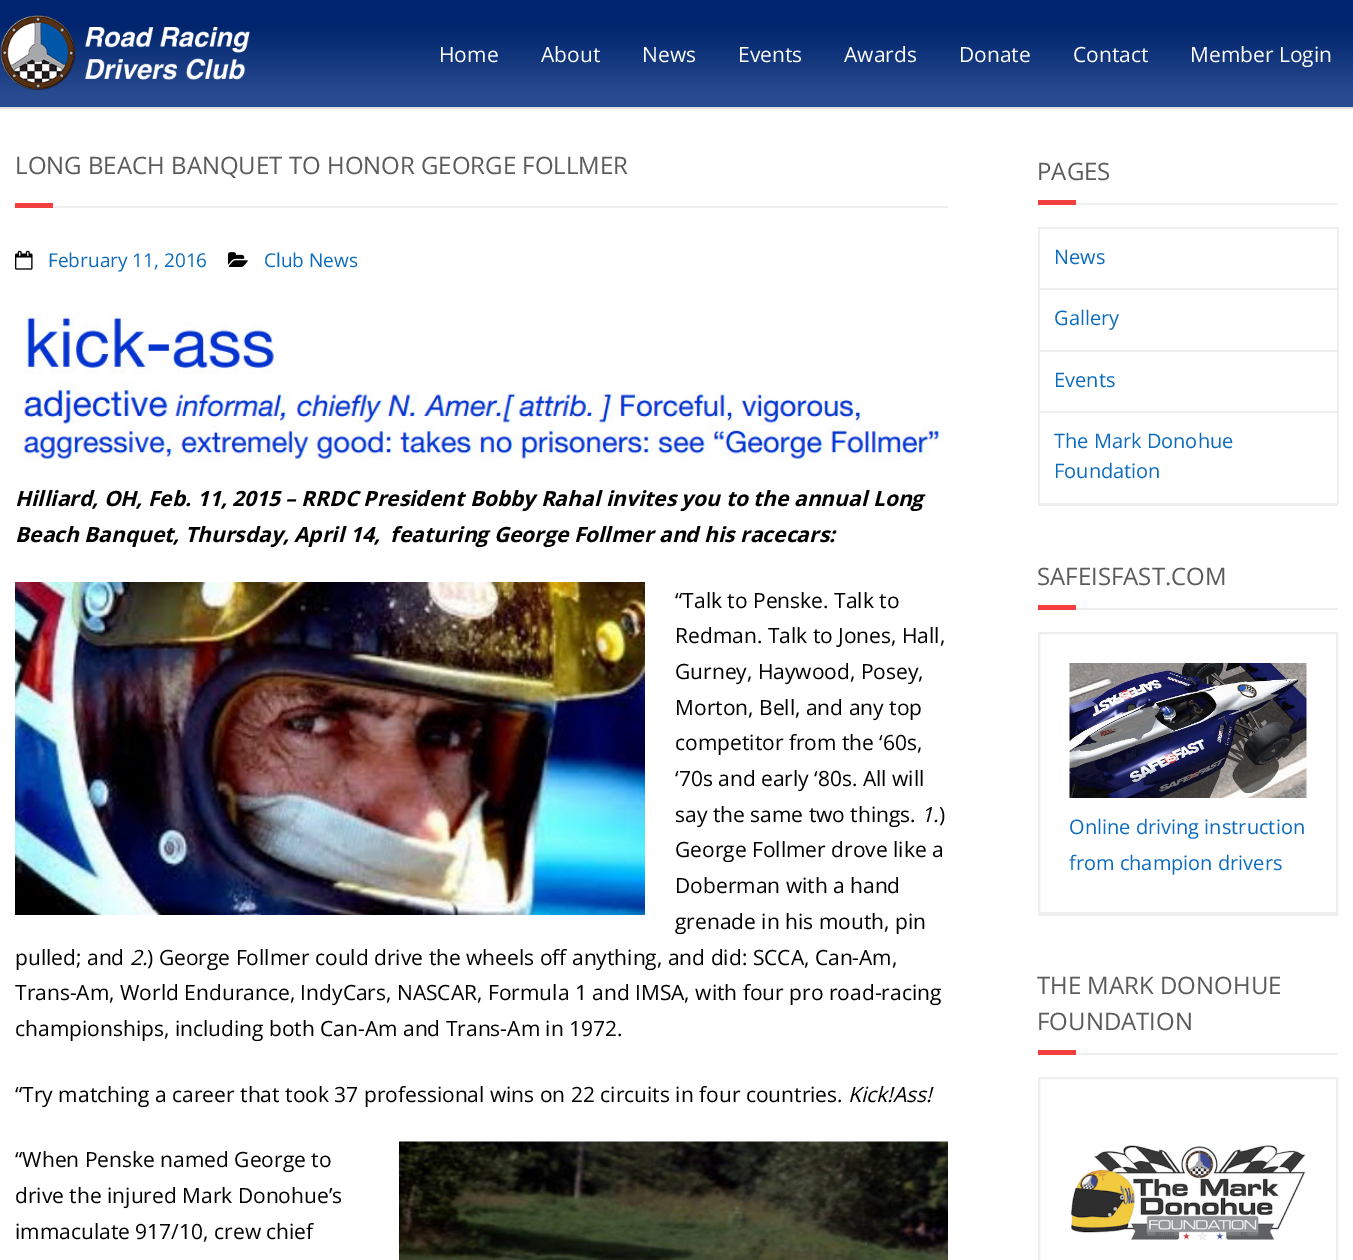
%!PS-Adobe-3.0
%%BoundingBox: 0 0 1353 1260
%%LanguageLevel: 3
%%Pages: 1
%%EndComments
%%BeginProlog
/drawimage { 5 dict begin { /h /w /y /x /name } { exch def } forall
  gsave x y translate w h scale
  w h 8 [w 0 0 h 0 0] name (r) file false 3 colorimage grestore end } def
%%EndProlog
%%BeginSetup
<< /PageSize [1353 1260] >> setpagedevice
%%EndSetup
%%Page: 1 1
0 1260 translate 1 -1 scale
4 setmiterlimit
1 setgray
0 0 1353 1260 rectfill
gsave newpath 0 0 moveto 1353 0 lineto 1353 107 lineto 0 107 lineto closepath clip newpath
<< /ShadingType 2 /ColorSpace /DeviceRGB /Coords [677 107 677 0] /Extend [true true] /Function << /FunctionType 3 /Domain [0 1] /Functions [<< /FunctionType 2 /Domain [0 1] /C0 [0.157 0.29 0.561] /C1 [0.157 0.29 0.561] /N 1 >> << /FunctionType 2 /Domain [0 1] /C0 [0.157 0.29 0.561] /C1 [0 0.145 0.431] /N 1 >> << /FunctionType 2 /Domain [0 1] /C0 [0 0.145 0.431] /C1 [0 0.145 0.431] /N 1 >>] /Bounds [0.12 0.76] /Encode [0 1 0 1 0 1] >> >> shfill grestore
0.878 setgray
0 107 1353 2 rectfill
(images/1.raw) 0 15 250 75 drawimage
0.953 0.247 0.247 setrgbcolor
15 203 38 5 rectfill
0.933 setgray
53 206 895 2 rectfill
(images/2.raw) 15 250 18 20 drawimage
(images/3.raw) 228 252 20 15 drawimage
(images/4.raw) 23 314 916 146 drawimage
(images/5.raw) 15 582 630 333 drawimage
(images/6.raw) 399 1141 549 119 drawimage
1038 504 300 2 rectfill
0.953 0.247 0.247 setrgbcolor
1038 200 38 5 rectfill
0.933 setgray
1076 203 262 2 rectfill
1038 227 300 2 rectfill
1337 227 2 277 rectfill
1038 227 2 277 rectfill
1040 288 297 2 rectfill
1040 350 297 2 rectfill
1040 411 297 2 rectfill
1040 503 297 1 rectfill
1038 914 300 2 rectfill
0.953 0.247 0.247 setrgbcolor
1038 605 38 5 rectfill
0.933 setgray
1076 608 262 2 rectfill
2 setlinewidth
1039 633 298 280 rectstroke
(images/7.raw) 1069 663 238 135 drawimage
0.953 0.247 0.247 setrgbcolor
1038 1050 38 5 rectfill
0.933 setgray
1076 1053 262 2 rectfill
1039 1078 298 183 rectstroke
(images/8.raw) 1070 1145 236 95 drawimage
/OpenSans-Regular [21 0 0 -21 0 0] selectfont
1 setgray
439 62 moveto (Home) show
541 62 moveto (About) show
642 62 moveto (News) show
738 62 moveto (Events) show
844 62 moveto (Awards) show
959 62 moveto (Donate) show
1073 62 moveto (Contact) show
1190 62 moveto (Member Login) show
/OpenSans-Regular [24 0 0 -24 0 0] selectfont
0.357 setgray
15 174 moveto (LONG BEACH BANQUET TO HONOR GEORGE FOLLMER) show
/OpenSans-Regular [19 0 0 -19 0 0] selectfont
0.043 0.42 0.749 setrgbcolor
48 267 moveto (February 11, 2016) show
264 267 moveto (Club News) show
/OpenSans-BoldItalic [21 0 0 -21 0 0] selectfont
0 setgray
15 506 moveto (Hilliard, OH, Feb. 11, 2015 – RRDC President Bobby Rahal invites you to the annual Long) show
15 542 moveto (Beach Banquet, Thursday, April 14,  featuring George Follmer and his racecars:) show
/OpenSans-Regular [21 0 0 -21 0 0] selectfont
675 608 moveto (“Talk to Penske. Talk to) show
675 643 moveto (Redman. Talk to Jones, Hall,) show
675 679 moveto (Gurney, Haywood, Posey,) show
675 715 moveto (Morton, Bell, and any top) show
675 750 moveto (competitor from the ‘60s,) show
675 786 moveto (‘70s and early ‘80s. All will) show
675 822 moveto (say the same two things.) show
/OpenSans-Italic [21 0 0 -21 0 0] selectfont
921 822 moveto (1.) show
/OpenSans-Regular [21 0 0 -21 0 0] selectfont
939 822 moveto (\)) show
675 857 moveto (George Follmer drove like a) show
675 893 moveto (Doberman with a hand) show
675 929 moveto (grenade in his mouth, pin) show
15 965 moveto (pulled; and) show
/OpenSans-Italic [21 0 0 -21 0 0] selectfont
130 965 moveto (2.) show
/OpenSans-Regular [21 0 0 -21 0 0] selectfont
147 965 moveto (\) George Follmer could drive the wheels off anything, and did: SCCA, Can-Am,) show
15 1000 moveto (Trans-Am, World Endurance, IndyCars, NASCAR, Formula 1 and IMSA, with four pro road-racing) show
15 1036 moveto (championships, including both Can-Am and Trans-Am in 1972.) show
15 1102 moveto (“Try matching a career that took 37 professional wins on 22 circuits in four countries.) show
/OpenSans-Italic [21 0 0 -21 0 0] selectfont
848 1102 moveto (Kick!Ass!) show
/OpenSans-Regular [21 0 0 -21 0 0] selectfont
15 1167 moveto (“When Penske named George to) show
15 1203 moveto (drive the injured Mark Donohue’s) show
15 1239 moveto (immaculate 917/10, crew chief) show
/OpenSans-Regular [24 0 0 -24 0 0] selectfont
0.357 setgray
1037 180 moveto (PAGES) show
/OpenSans-Regular [20 0 0 -20 0 0] selectfont
0.043 0.42 0.749 setrgbcolor
1054 264 moveto (News) show
1054 325 moveto (Gallery) show
1054 387 moveto (Events) show
1054 448 moveto (The Mark Donohue) show
1054 478 moveto (Foundation) show
/OpenSans-Regular [24 0 0 -24 0 0] selectfont
0.357 setgray
1037 585 moveto (SAFEISFAST.COM) show
/OpenSans-Regular [20 0 0 -20 0 0] selectfont
0.043 0.42 0.749 setrgbcolor
1069 834 moveto (Online driving instruction) show
1069 870 moveto (from champion drivers) show
/OpenSans-Regular [24 0 0 -24 0 0] selectfont
0.357 setgray
1037 994 moveto (THE MARK DONOHUE) show
1037 1030 moveto (FOUNDATION) show
showpage
%%EOF
